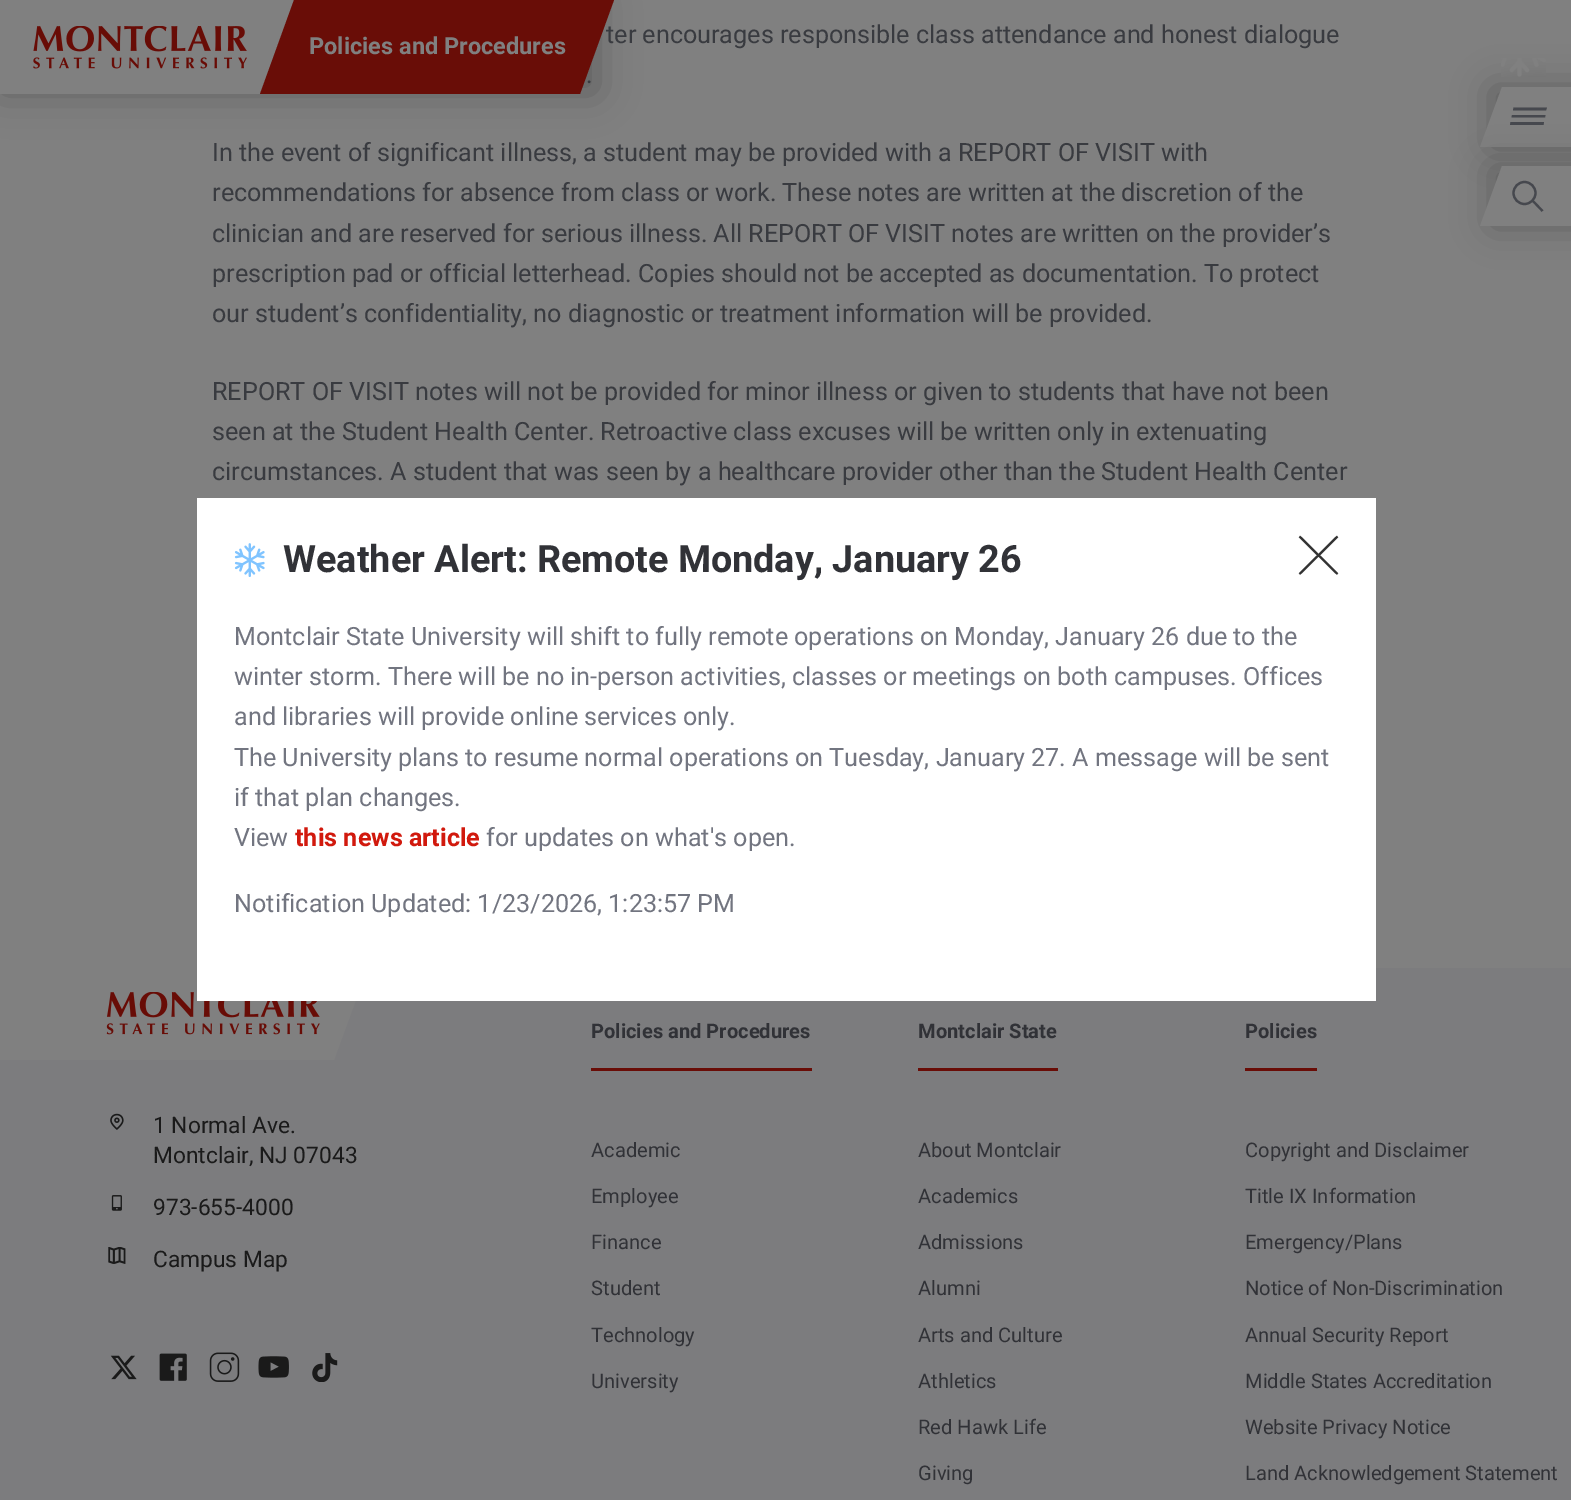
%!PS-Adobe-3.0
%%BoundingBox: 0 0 1571 1500
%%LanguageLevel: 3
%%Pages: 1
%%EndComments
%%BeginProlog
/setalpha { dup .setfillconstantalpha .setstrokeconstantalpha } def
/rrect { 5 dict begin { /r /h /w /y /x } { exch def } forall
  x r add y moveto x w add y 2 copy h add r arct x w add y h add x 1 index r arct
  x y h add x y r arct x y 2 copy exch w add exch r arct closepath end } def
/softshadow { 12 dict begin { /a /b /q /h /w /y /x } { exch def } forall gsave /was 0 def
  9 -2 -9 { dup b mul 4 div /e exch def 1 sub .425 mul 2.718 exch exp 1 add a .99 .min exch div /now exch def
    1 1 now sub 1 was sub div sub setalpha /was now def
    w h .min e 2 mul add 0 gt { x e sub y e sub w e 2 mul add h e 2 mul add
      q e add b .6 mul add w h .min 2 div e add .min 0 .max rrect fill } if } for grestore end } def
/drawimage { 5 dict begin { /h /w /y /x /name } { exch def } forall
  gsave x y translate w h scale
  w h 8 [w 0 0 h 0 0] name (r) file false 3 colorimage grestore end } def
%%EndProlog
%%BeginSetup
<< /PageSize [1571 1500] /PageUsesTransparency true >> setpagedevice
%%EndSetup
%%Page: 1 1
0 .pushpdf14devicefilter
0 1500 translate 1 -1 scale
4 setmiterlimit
0.502 setgray
0 0 1571 1500 rectfill
0 setgray
1491 87 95 60 0 19 0.25 softshadow
0.502 setgray
newpath 1502 87 moveto 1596 87 lineto 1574 147 lineto 1480 147 lineto closepath fill
0.275 0.282 0.306 setrgbcolor
newpath 1543.5 125 moveto 1510 125 lineto 1510.5 122 lineto 1544 122 lineto 1545 117.5 moveto 1511.5 117.5 lineto 1512 115 lineto 1545.5 115 lineto 1546 110.5 moveto 1513 110.5 lineto 1513.5 107.5 lineto 1547 107.5 lineto fill
0 setgray
1491 167 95 60 0 19 0.25 softshadow
0.502 setgray
newpath 1502 166 moveto 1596 166 lineto 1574 226 lineto 1480 226 lineto closepath fill
0.275 0.282 0.306 setrgbcolor
2.2 setlinewidth
newpath 1524.5 193 11 0 360 arc closepath stroke
newpath 1542.5 211 moveto 1532 200 lineto stroke
0 setgray
0 0 597 93 0 20.5 0.25 softshadow
0.502 setgray
newpath -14 0 moveto 296 0 lineto 262 94 lineto -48 94 lineto closepath fill
(images/1.raw) 33 26 214 43 drawimage
(images/2.raw) 1501 58 45 19 drawimage
0.486 0.486 0.494 setrgbcolor
0 968 1571 532 rectfill
0.502 setgray
newpath -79 967 moveto 368 967 lineto 334 1060 lineto -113 1060 lineto closepath fill
(images/4.raw) 106 992 214 43 drawimage
1 setgray
197 498 1179 503 rectfill
(images/3.raw) 234 543 31 34 drawimage
0.2 setgray
2.1 setlinewidth
newpath 1299.5 574 moveto 1337.5 536.5 lineto 1337.5 574 moveto 1299.5 536.5 lineto stroke
(images/5.raw) 110 1113 14 17 drawimage
(images/6.raw) 111 1195 11 16 drawimage
(images/7.raw) 108 1247 18 17 drawimage
(images/8.raw) 110 1355 27 25 drawimage
(images/9.raw) 159 1353 28 28 drawimage
(images/10.raw) 209 1352 31 30 drawimage
(images/11.raw) 258 1356 31 22 drawimage
(images/12.raw) 312 1353 26 29 drawimage
0.412 0.051 0.027 setrgbcolor
591 1068 221 3 rectfill
918 1068 140 3 rectfill
1245 1068 72 3 rectfill
/Roboto-Regular [25.15 0 0 -25.15 0 0] selectfont
0.224 0.231 0.251 setrgbcolor
606 43 moveto (ter encourages responsible class attendance and honest dialogue) show
586 83 moveto (.) show
212 161 moveto (In the event of significant illness, a student may be provided with a REPORT OF VISIT with) show
212 201 moveto (recommendations for absence from class or work. These notes are written at the discretion of the) show
212 242 moveto (clinician and are reserved for serious illness. All REPORT OF VISIT notes are written on the provider’s) show
212 282 moveto (prescription pad or official letterhead. Copies should not be accepted as documentation. To protect) show
212 322 moveto (our student’s confidentiality, no diagnostic or treatment information will be provided.) show
212 400 moveto (REPORT OF VISIT notes will not be provided for minor illness or given to students that have not been) show
212 440 moveto (seen at the Student Health Center. Retroactive class excuses will be written only in extenuating) show
212 480 moveto (circumstances. A student that was seen by a healthcare provider other than the Student Health Center) show
0.412 0.051 0.027 setrgbcolor
newpath 294 0 moveto 614 0 lineto 580 94 lineto 260 94 lineto closepath fill
/Roboto-Bold [23.5 0 0 -23.5 0 0] selectfont
0.502 setgray
309 54 moveto (Policies and Procedures) show
/Roboto-Bold [37.75 0 0 -37.75 0 0] selectfont
0.192 0.196 0.216 setrgbcolor
283 572 moveto (Weather Alert: Remote Monday, January 26) show
/Roboto-Regular [25.15 0 0 -25.15 0 0] selectfont
0.447 0.459 0.502 setrgbcolor
234 645 moveto (Montclair State University will shift to fully remote operations on Monday, January 26 due to the) show
234 685 moveto (winter storm. There will be no in-person activities, classes or meetings on both campuses. Offices) show
234 725 moveto (and libraries will provide online services only.) show
234 766 moveto (The University plans to resume normal operations on Tuesday, January 27. A message will be sent) show
234 806 moveto (if that plan changes.) show
234 846 moveto (View) show
/Roboto-Bold [25.15 0 0 -25.15 0 0] selectfont
0.82 0.098 0.051 setrgbcolor
295 846 moveto (this news article) show
/Roboto-Regular [25.15 0 0 -25.15 0 0] selectfont
0.447 0.459 0.502 setrgbcolor
486 846 moveto (for updates on what's open.) show
234 912 moveto (Notification Updated: 1/23/2026, 1:23:57 PM) show
/Roboto-Regular [22.75 0 0 -22.75 0 0] selectfont
0.102 setgray
153 1133 moveto (1 Normal Ave.) show
153 1163 moveto (Montclair, NJ 07043) show
153 1215 moveto (973-655-4000) show
153 1267 moveto (Campus Map) show
/Roboto-Bold [20.1 0 0 -20.1 0 0] selectfont
0.192 0.196 0.216 setrgbcolor
591 1038 moveto (Policies and Procedures) show
/Roboto-Regular [20.1 0 0 -20.1 0 0] selectfont
591 1157 moveto (Academic) show
591 1203 moveto (Employee) show
591 1249 moveto (Finance) show
591 1295 moveto (Student) show
591 1342 moveto (Technology) show
591 1388 moveto (University) show
/Roboto-Bold [20.1 0 0 -20.1 0 0] selectfont
918 1038 moveto (Montclair State) show
/Roboto-Regular [20.1 0 0 -20.1 0 0] selectfont
918 1157 moveto (About Montclair) show
918 1203 moveto (Academics) show
918 1249 moveto (Admissions) show
918 1295 moveto (Alumni) show
918 1342 moveto (Arts and Culture) show
918 1388 moveto (Athletics) show
918 1434 moveto (Red Hawk Life) show
918 1480 moveto (Giving) show
/Roboto-Bold [20.1 0 0 -20.1 0 0] selectfont
1245 1038 moveto (Policies) show
/Roboto-Regular [20.1 0 0 -20.1 0 0] selectfont
1245 1157 moveto (Copyright and Disclaimer) show
1245 1203 moveto (Title IX Information) show
1245 1249 moveto (Emergency/Plans) show
1245 1295 moveto (Notice of Non-Discrimination) show
1245 1342 moveto (Annual Security Report) show
1245 1388 moveto (Middle States Accreditation) show
1245 1434 moveto (Website Privacy Notice) show
1245 1480 moveto (Land Acknowledgement Statement) show
.poppdf14devicefilter showpage
%%EOF
